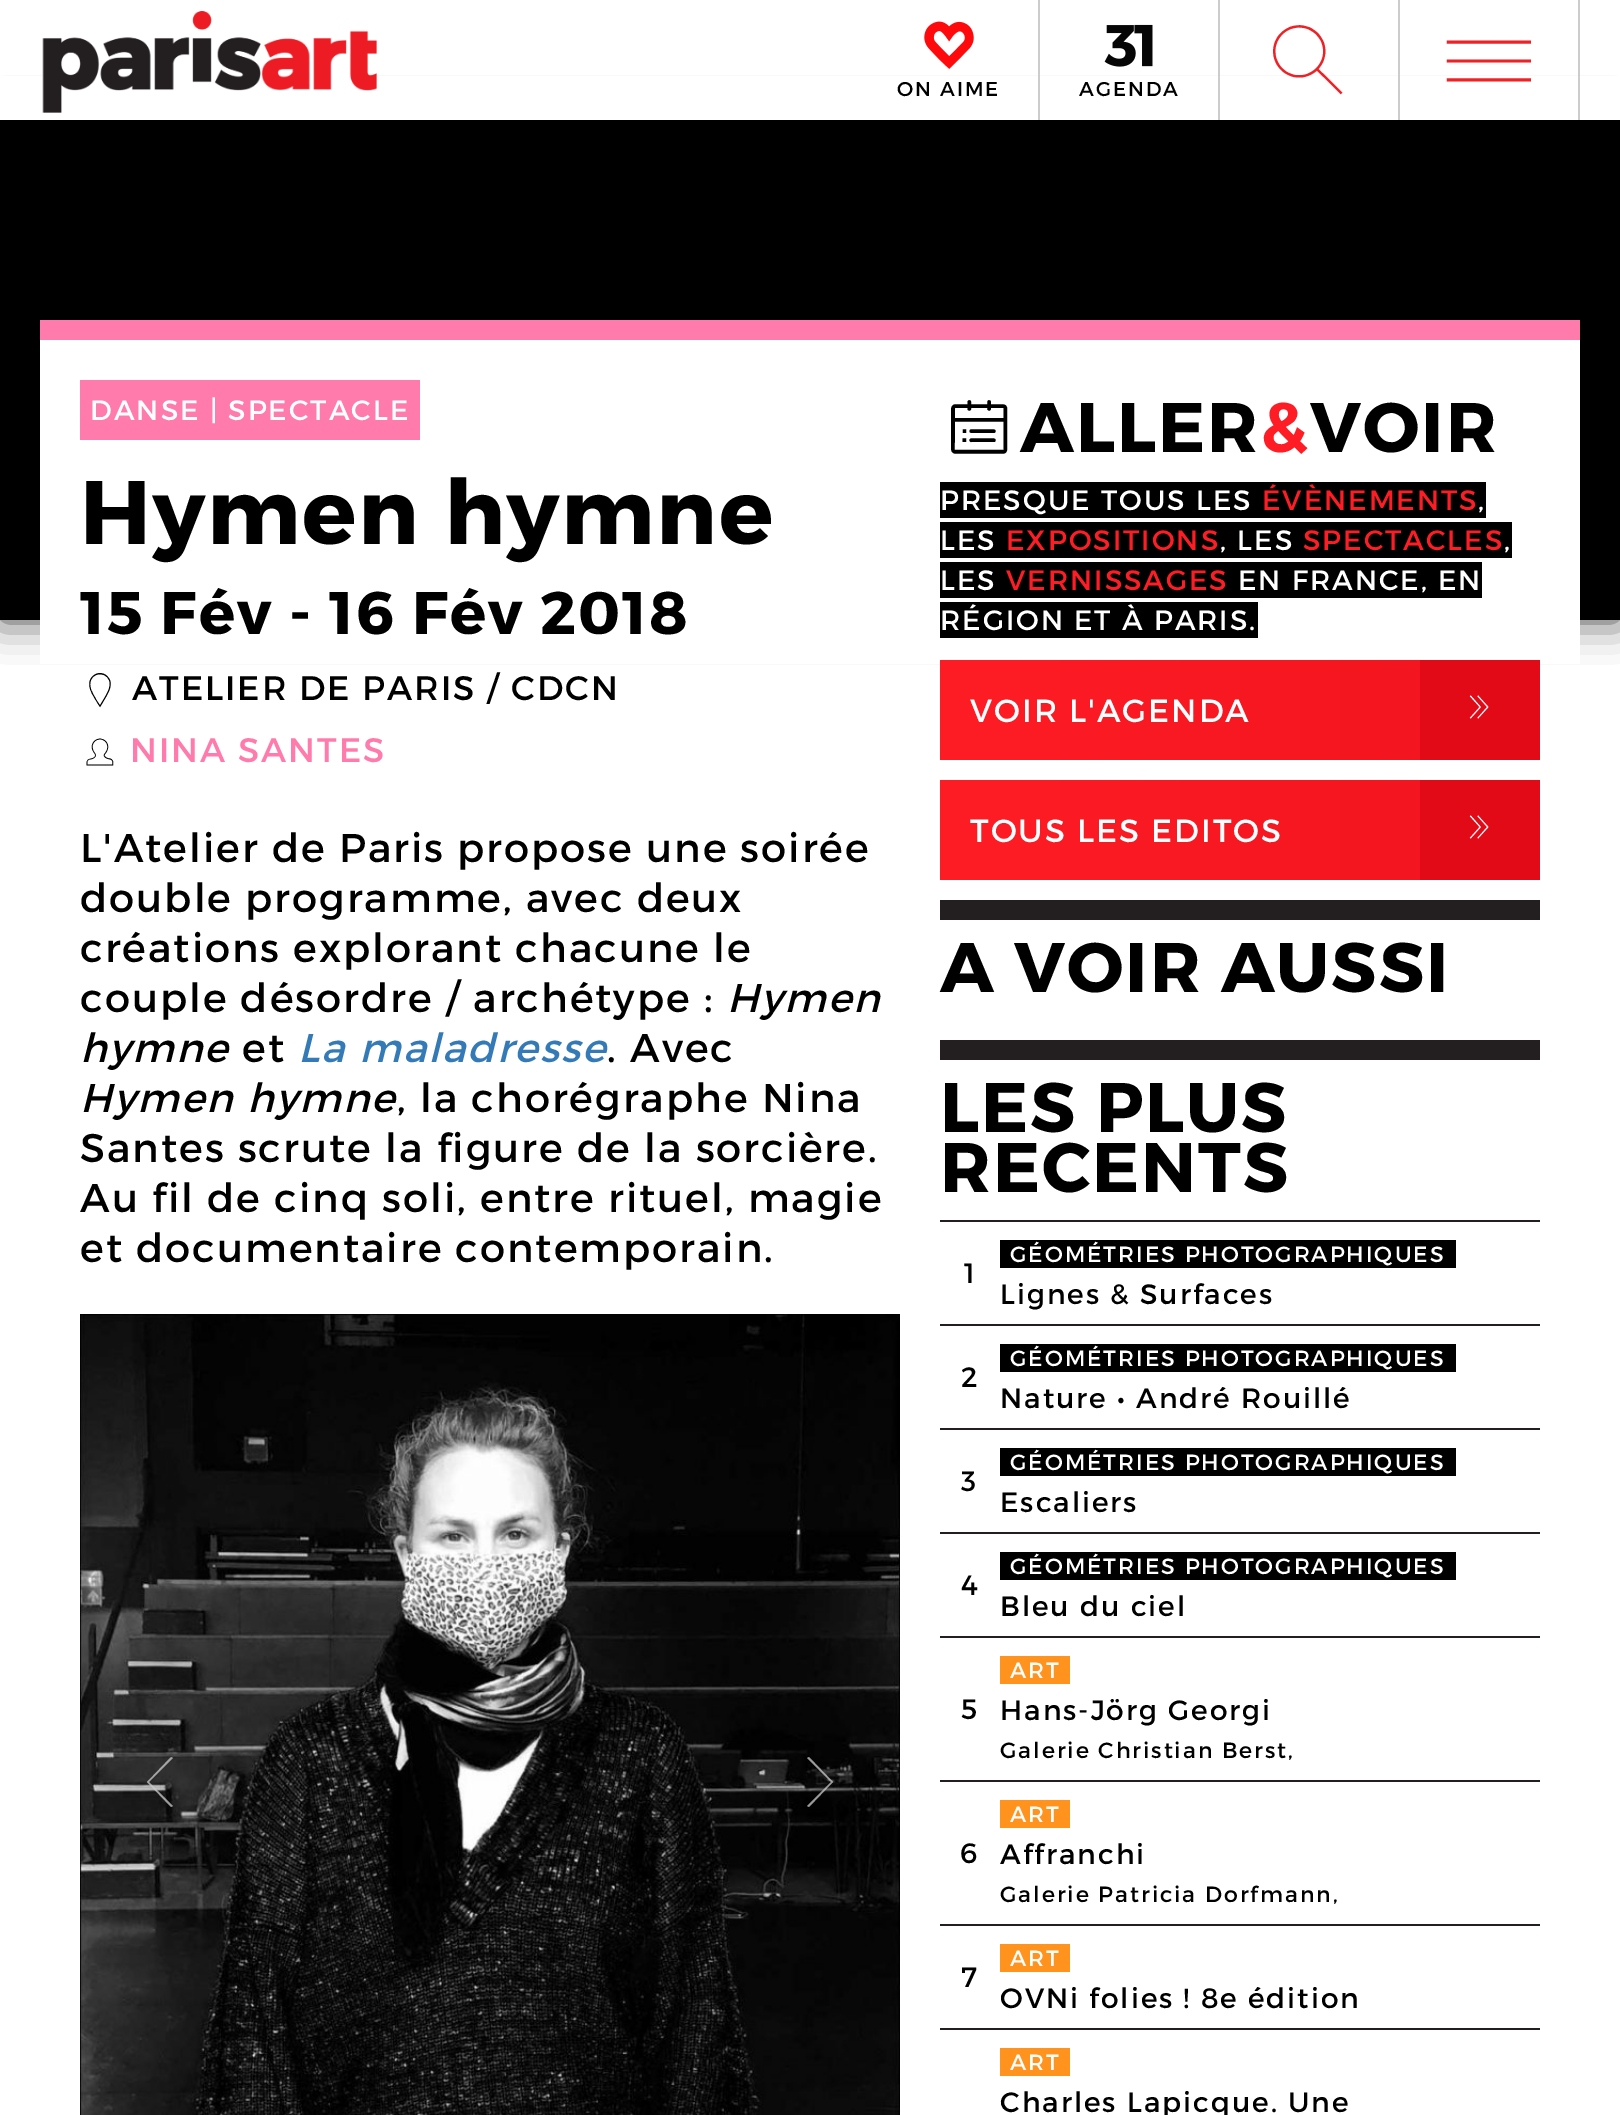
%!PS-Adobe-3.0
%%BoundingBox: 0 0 1620 2115
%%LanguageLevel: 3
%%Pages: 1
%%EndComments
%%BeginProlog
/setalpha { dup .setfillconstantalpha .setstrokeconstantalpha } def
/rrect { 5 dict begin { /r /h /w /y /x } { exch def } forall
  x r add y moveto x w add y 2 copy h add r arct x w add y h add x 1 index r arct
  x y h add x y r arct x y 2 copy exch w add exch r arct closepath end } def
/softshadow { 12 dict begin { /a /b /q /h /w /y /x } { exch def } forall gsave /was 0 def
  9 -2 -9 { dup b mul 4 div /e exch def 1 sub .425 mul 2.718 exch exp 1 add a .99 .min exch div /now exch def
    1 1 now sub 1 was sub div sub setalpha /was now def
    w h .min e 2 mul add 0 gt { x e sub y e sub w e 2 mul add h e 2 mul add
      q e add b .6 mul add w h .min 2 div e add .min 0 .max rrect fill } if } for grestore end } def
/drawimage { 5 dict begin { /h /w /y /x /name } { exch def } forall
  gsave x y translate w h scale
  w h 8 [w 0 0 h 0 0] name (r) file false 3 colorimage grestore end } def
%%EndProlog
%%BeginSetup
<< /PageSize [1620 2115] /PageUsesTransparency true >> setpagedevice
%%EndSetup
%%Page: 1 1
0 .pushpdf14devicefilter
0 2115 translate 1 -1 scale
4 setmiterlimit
1 setgray
0 0 1620 2115 rectfill
0 setgray
0 120 1620 500 0 20 0.75 softshadow
1 setgray
0 76 1620 44 rectfill
(images/1.raw) 42 11 335 102 drawimage
0.8 setgray
1398 0 2 120 rectfill
1578 0 2 120 rectfill
1038 0 2 120 rectfill
(images/2.raw) 924 21 50 48 drawimage
1218 0 2 120 rectfill
(images/3.raw) 1104 24 49 43 drawimage
0 setgray
0 120 1620 500 rectfill
1 setgray
40 340 1540 324 rectfill
1 0.482 0.675 setrgbcolor
40 320 1540 20 rectfill
80 380 340 60 rectfill
(images/4.raw) 80 1314 820 801 drawimage
0.75 setalpha
0.8 setgray
newpath 171 1807 moveto 173 1806 lineto 149 1782 lineto 173 1758 lineto 171 1757 lineto 147 1782 lineto closepath fill
newpath 809 1807 moveto 833 1782 lineto 809 1757 lineto 807 1758 lineto 831 1782 lineto 807 1806 lineto closepath fill
1 setalpha
0.137 0.122 0.125 setrgbcolor
940 900 600 20 rectfill
0 setgray
940 482 546 36 rectfill
940 522 572 36 rectfill
940 562 542 36 rectfill
940 602 318 36 rectfill
gsave newpath 940 660 moveto 1420 660 lineto 1420 760 lineto 940 760 lineto closepath clip newpath
<< /ShadingType 2 /ColorSpace /DeviceRGB /Coords [940 710 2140 710] /Extend [true true] /Function << /FunctionType 2 /Domain [0 1] /C0 [1 0.114 0.145] /C1 [0.886 0.039 0.09] /N 1 >> >> shfill grestore
0.886 0.039 0.09 setrgbcolor
1420 660 120 100 rectfill
gsave newpath 940 780 moveto 1420 780 lineto 1420 880 lineto 940 880 lineto closepath clip newpath
<< /ShadingType 2 /ColorSpace /DeviceRGB /Coords [940 830 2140 830] /Extend [true true] /Function << /FunctionType 2 /Domain [0 1] /C0 [1 0.114 0.145] /C1 [0.886 0.039 0.09] /N 1 >> >> shfill grestore
1420 780 120 100 rectfill
0.137 0.122 0.125 setrgbcolor
940 1040 600 20 rectfill
940 1220 600 2 rectfill
0 setgray
1000 1240 456 28 rectfill
0.137 0.122 0.125 setrgbcolor
940 1324 600 2 rectfill
0 setgray
1000 1344 456 28 rectfill
0.137 0.122 0.125 setrgbcolor
940 1428 600 2 rectfill
0 setgray
1000 1448 456 28 rectfill
0.137 0.122 0.125 setrgbcolor
940 1532 600 2 rectfill
0 setgray
1000 1552 456 28 rectfill
0.137 0.122 0.125 setrgbcolor
940 1636 600 2 rectfill
1 0.576 0.118 setrgbcolor
1000 1656 70 28 rectfill
0.137 0.122 0.125 setrgbcolor
940 1780 600 2 rectfill
1 0.576 0.118 setrgbcolor
1000 1800 70 28 rectfill
0.137 0.122 0.125 setrgbcolor
940 1924 600 2 rectfill
1 0.576 0.118 setrgbcolor
1000 1944 70 28 rectfill
0.137 0.122 0.125 setrgbcolor
940 2028 600 2 rectfill
1 0.576 0.118 setrgbcolor
1000 2048 70 28 rectfill
/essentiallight-Light [100 0 0 -100 0 0] selectfont
0.925 0.133 0.153 setrgbcolor
1258 110 moveto 2 0 (W) ashow
/essentiallight-Light [130 0 0 -130 0 0] selectfont
1424 126 moveto (m) show
/Montserrat-Regular [20 0 0 -20 0 0] selectfont
0 setgray
897 96 moveto 2 0 (ON AIME) ashow
1079 96 moveto 2 0 (AGENDA) ashow
/Montserrat-Regular [28 0 0 -28 0 0] selectfont
1 setgray
90 420 moveto 2 0 (DANSE | SPECTACLE) ashow
/Montserrat-Bold [90 0 0 -90 0 0] selectfont
0 setgray
80 544 moveto 2 0 (Hymen hymne) ashow
/Montserrat-Bold [60 0 0 -60 0 0] selectfont
80 634 moveto 2 0 (15 Fév - 16 Fév 2018) ashow
/essentiallight-Light [40 0 0 -40 0 0] selectfont
80 710 moveto 2 0 (_) ashow
/Montserrat-Regular [34 0 0 -34 0 0] selectfont
132 700 moveto 2 0 (ATELIER DE PARIS / CDCN) ashow
/essentiallight-Light [40 0 0 -40 0 0] selectfont
80 772 moveto 2 0 (S) ashow
/Montserrat-Regular [34 0 0 -34 0 0] selectfont
1 0.482 0.675 setrgbcolor
130 762 moveto 2 0 (NINA SANTES) ashow
/Montserrat-Regular [40 0 0 -40 0 0] selectfont
0 setgray
80 862 moveto 2 0 (L'Atelier de Paris propose une soirée) ashow
80 912 moveto 2 0 (double programme, avec deux) ashow
80 962 moveto 2 0 (créations explorant chacune le) ashow
80 1012 moveto 2 0 (couple désordre / archétype :) ashow
/Montserrat-Italic [40 0 0 -40 0 0] selectfont
727 1012 moveto 2 0 (Hymen) ashow
80 1062 moveto 2 0 (hymne) ashow
/Montserrat-Regular [40 0 0 -40 0 0] selectfont
242 1062 moveto 2 0 (et) ashow
/Montserrat-Italic [40 0 0 -40 0 0] selectfont
0.2 0.478 0.718 setrgbcolor
298 1062 moveto 2 0 (La maladresse) ashow
/Montserrat-Regular [40 0 0 -40 0 0] selectfont
0 setgray
607 1062 moveto 2 0 (. Avec) ashow
/Montserrat-Italic [40 0 0 -40 0 0] selectfont
80 1112 moveto 2 0 (Hymen hymne) ashow
/Montserrat-Regular [40 0 0 -40 0 0] selectfont
397 1112 moveto 2 0 (, la chorégraphe Nina) ashow
80 1162 moveto 2 0 (Santes scrute la figure de la sorcière.) ashow
80 1212 moveto 2 0 (Au fil de cinq soli, entre rituel, magie) ashow
80 1262 moveto 2 0 (et documentaire contemporain.) ashow
/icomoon-Regular [70 0 0 -70 0 0] selectfont
947 450 moveto 2 0 (@) ashow
/Montserrat-Bold [70 0 0 -70 0 0] selectfont
1020 452 moveto 2 0 (ALLER) ashow
1 0.114 0.145 setrgbcolor
1260 452 moveto 2 0 (&) ashow
0 setgray
1310 452 moveto 2 0 (VOIR) ashow
/Montserrat-Regular [28 0 0 -28 0 0] selectfont
1 setgray
940 510 moveto 2 0 (PRESQUE TOUS LES) ashow
1 0.114 0.145 setrgbcolor
1262 510 moveto 2 0 (ÉVÈNEMENTS) ashow
1 setgray
1478 510 moveto 2 0 (,) ashow
940 550 moveto 2 0 (LES) ashow
1 0.114 0.145 setrgbcolor
1006 550 moveto 2 0 (EXPOSITIONS) ashow
1 setgray
1220 550 moveto 2 0 (, LES) ashow
1 0.114 0.145 setrgbcolor
1303 550 moveto 2 0 (SPECTACLES) ashow
1 setgray
1504 550 moveto 2 0 (,) ashow
940 590 moveto 2 0 (LES) ashow
1 0.114 0.145 setrgbcolor
1006 590 moveto 2 0 (VERNISSAGES) ashow
1 setgray
1238 590 moveto 2 0 (EN FRANCE, EN) ashow
940 630 moveto 2 0 (RÉGION ET À PARIS.) ashow
/Montserrat-Regular [32 0 0 -32 0 0] selectfont
970 722 moveto 2 0 (VOIR L'AGENDA) ashow
/essentiallight-Light [50 0 0 -50 0 0] selectfont
1454 732 moveto 2 0 (,) ashow
/Montserrat-Regular [32 0 0 -32 0 0] selectfont
970 842 moveto 2 0 (TOUS LES EDITOS) ashow
/essentiallight-Light [50 0 0 -50 0 0] selectfont
1454 852 moveto 2 0 (,) ashow
/Montserrat-Bold [70 0 0 -70 0 0] selectfont
0 setgray
940 992 moveto 2 0 (A VOIR AUSSI) ashow
940 1132 moveto 2 0 (LES PLUS) ashow
940 1192 moveto 2 0 (RECENTS) ashow
/Montserrat-Regular [28 0 0 -28 0 0] selectfont
964 1283 moveto 2 0 (1) ashow
/Montserrat-Regular [22 0 0 -22 0 0] selectfont
1 setgray
1010 1262 moveto 2 0 (GÉOMÉTRIES PHOTOGRAPHIQUES) ashow
/Montserrat-Regular [28 0 0 -28 0 0] selectfont
0 setgray
1000 1304 moveto 2 0 (Lignes & Surfaces) ashow
961 1387 moveto 2 0 (2) ashow
/Montserrat-Regular [22 0 0 -22 0 0] selectfont
1 setgray
1010 1366 moveto 2 0 (GÉOMÉTRIES PHOTOGRAPHIQUES) ashow
/Montserrat-Regular [28 0 0 -28 0 0] selectfont
0 setgray
1000 1408 moveto 2 0 (Nature • André Rouillé) ashow
961 1491 moveto 2 0 (3) ashow
/Montserrat-Regular [22 0 0 -22 0 0] selectfont
1 setgray
1010 1470 moveto 2 0 (GÉOMÉTRIES PHOTOGRAPHIQUES) ashow
/Montserrat-Regular [28 0 0 -28 0 0] selectfont
0 setgray
1000 1512 moveto 2 0 (Escaliers) ashow
961 1595 moveto 2 0 (4) ashow
/Montserrat-Regular [22 0 0 -22 0 0] selectfont
1 setgray
1010 1574 moveto 2 0 (GÉOMÉTRIES PHOTOGRAPHIQUES) ashow
/Montserrat-Regular [28 0 0 -28 0 0] selectfont
0 setgray
1000 1616 moveto 2 0 (Bleu du ciel) ashow
961 1719 moveto 2 0 (5) ashow
/Montserrat-Regular [22 0 0 -22 0 0] selectfont
1 setgray
1010 1678 moveto 2 0 (ART) ashow
/Montserrat-Regular [28 0 0 -28 0 0] selectfont
0 setgray
1000 1720 moveto 2 0 (Hans-Jörg Georgi) ashow
/Montserrat-Regular [22 0 0 -22 0 0] selectfont
1000 1758 moveto 2 0 (Galerie Christian Berst,) ashow
/Montserrat-Regular [28 0 0 -28 0 0] selectfont
960 1863 moveto 2 0 (6) ashow
/Montserrat-Regular [22 0 0 -22 0 0] selectfont
1 setgray
1010 1822 moveto 2 0 (ART) ashow
/Montserrat-Regular [28 0 0 -28 0 0] selectfont
0 setgray
1000 1864 moveto 2 0 (Affranchi) ashow
/Montserrat-Regular [22 0 0 -22 0 0] selectfont
1000 1902 moveto 2 0 (Galerie Patricia Dorfmann,) ashow
/Montserrat-Regular [28 0 0 -28 0 0] selectfont
961 1987 moveto 2 0 (7) ashow
/Montserrat-Regular [22 0 0 -22 0 0] selectfont
1 setgray
1010 1966 moveto 2 0 (ART) ashow
/Montserrat-Regular [28 0 0 -28 0 0] selectfont
0 setgray
1000 2008 moveto 2 0 (OVNi folies ! 8e édition) ashow
/Montserrat-Regular [22 0 0 -22 0 0] selectfont
1 setgray
1010 2070 moveto 2 0 (ART) ashow
/Montserrat-Regular [28 0 0 -28 0 0] selectfont
0 setgray
1000 2112 moveto 2 0 (Charles Lapicque. Une) ashow
.poppdf14devicefilter showpage
%%EOF
